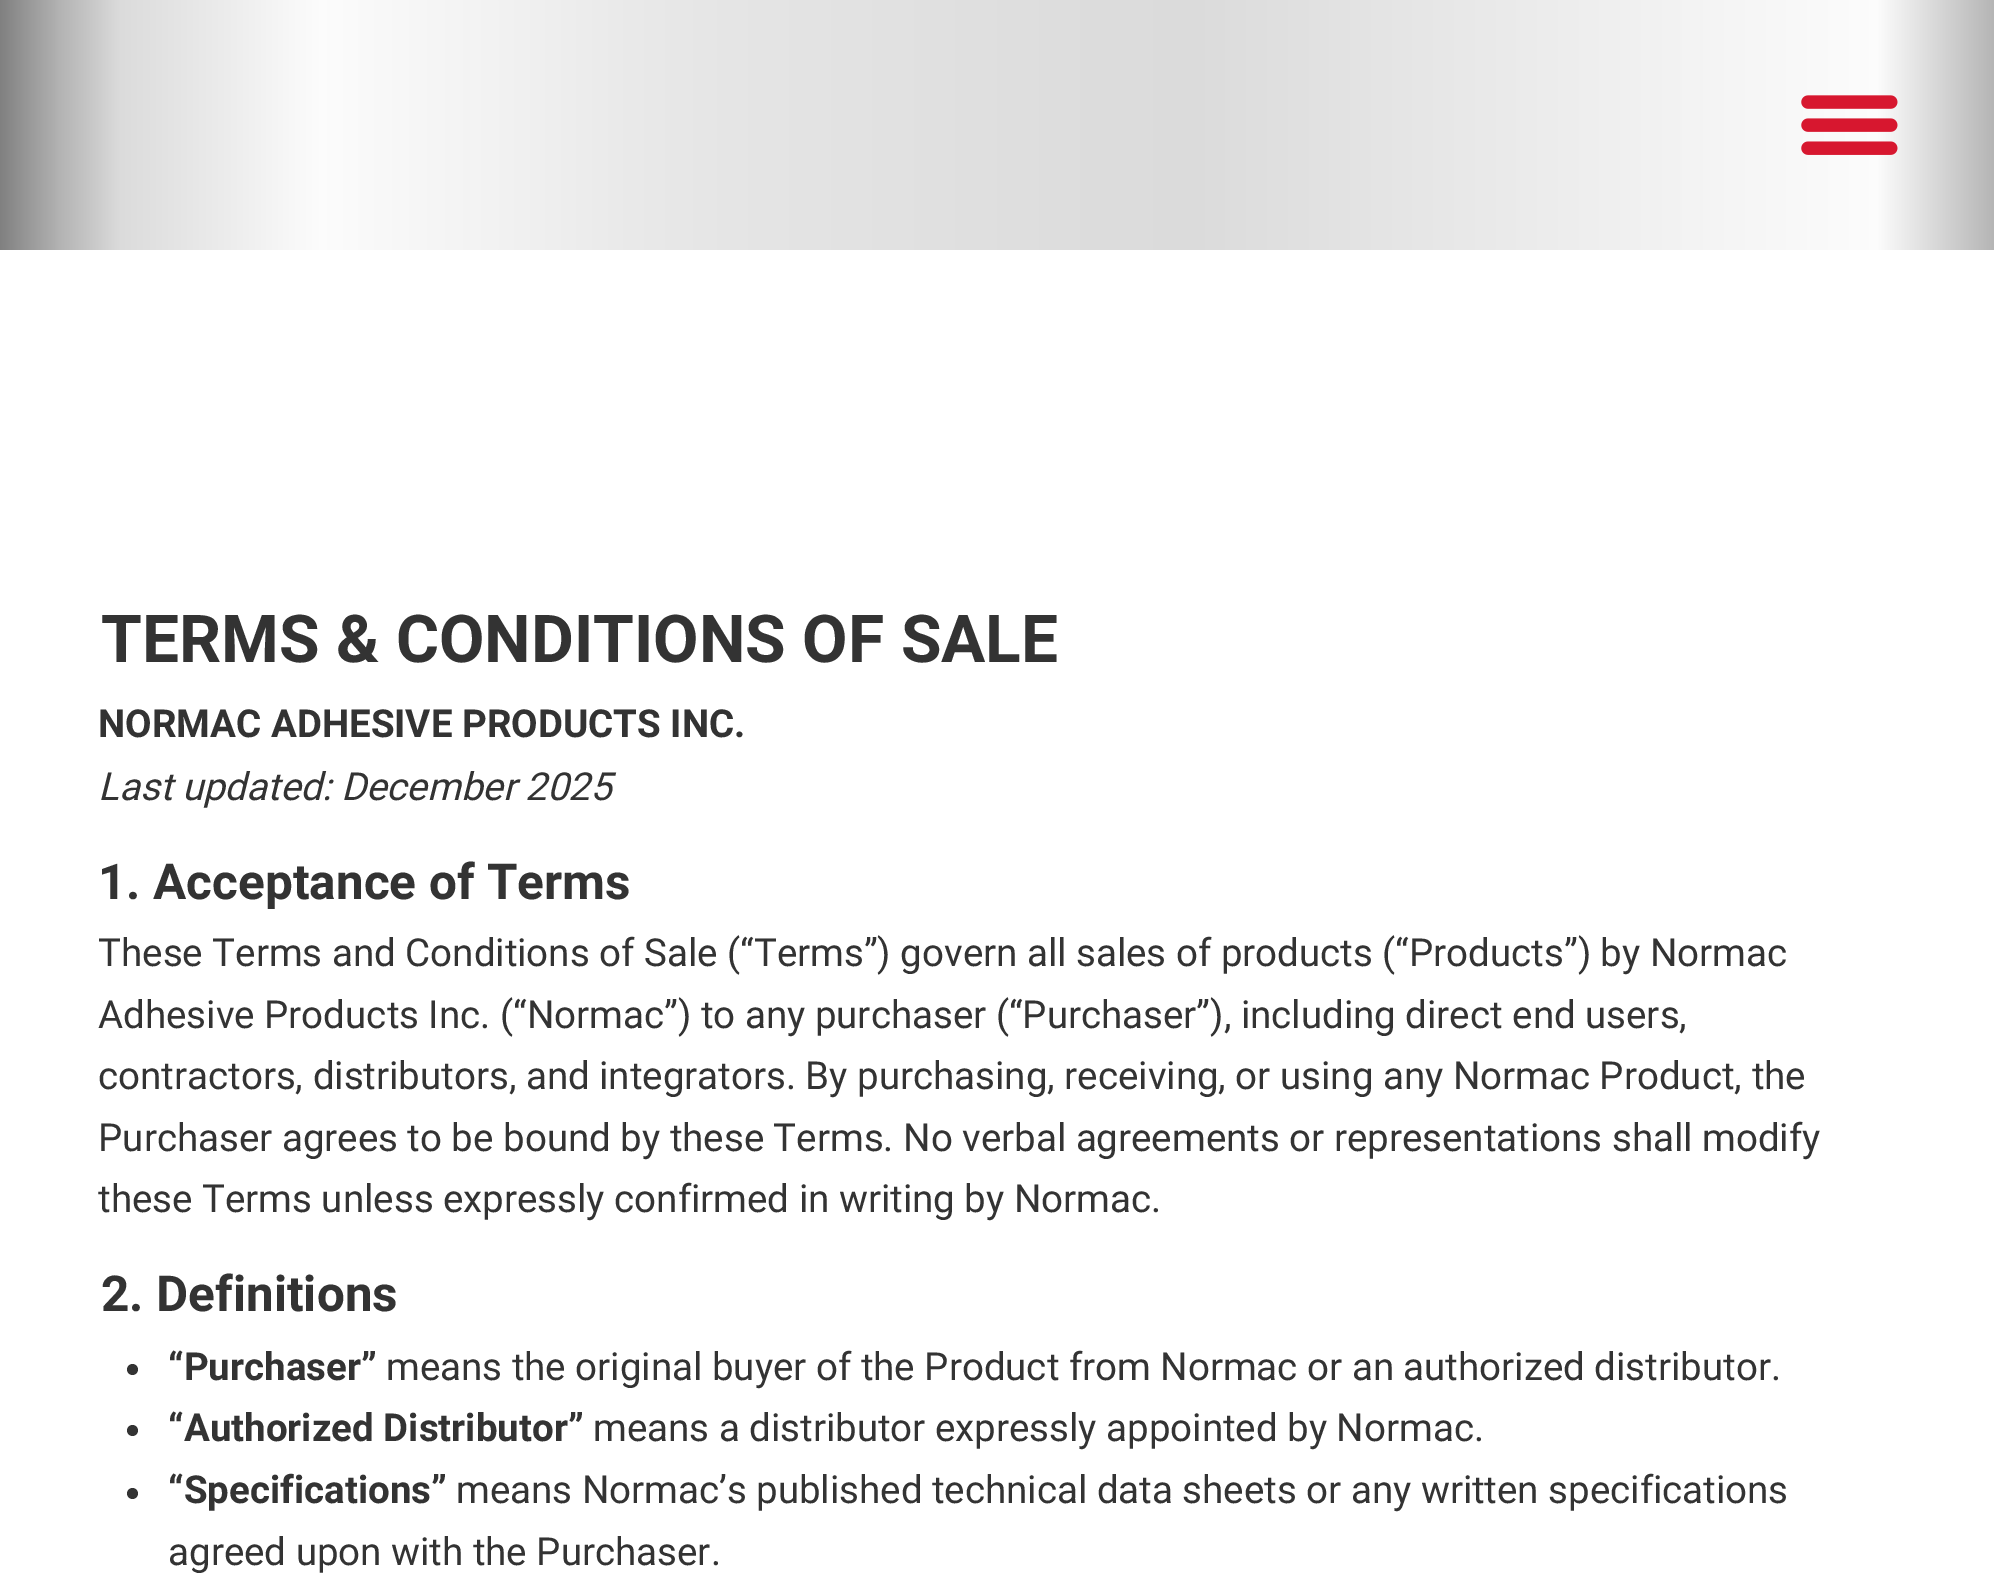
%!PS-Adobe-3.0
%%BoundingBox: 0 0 1994 1593
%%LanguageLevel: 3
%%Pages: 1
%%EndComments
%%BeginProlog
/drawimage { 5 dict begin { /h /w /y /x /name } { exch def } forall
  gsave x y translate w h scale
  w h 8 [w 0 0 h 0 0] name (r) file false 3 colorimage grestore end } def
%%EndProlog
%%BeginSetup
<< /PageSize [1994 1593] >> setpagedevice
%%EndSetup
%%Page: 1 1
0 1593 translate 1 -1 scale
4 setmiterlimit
1 setgray
0 0 1994 1593 rectfill
gsave newpath 0 0 moveto 1994 0 lineto 1994 250 lineto 0 250 lineto closepath clip newpath
<< /ShadingType 2 /ColorSpace /DeviceRGB /Coords [0 125 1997 125] /Extend [true true] /Function << /FunctionType 3 /Domain [0 1] /Functions [<< /FunctionType 2 /Domain [0 1] /C0 [0.502 0.502 0.502] /C1 [0.702 0.702 0.702] /N 1 >> << /FunctionType 2 /Domain [0 1] /C0 [0.702 0.702 0.702] /C1 [0.859 0.859 0.859] /N 1 >> << /FunctionType 2 /Domain [0 1] /C0 [0.859 0.859 0.859] /C1 [0.988 0.988 0.988] /N 1 >> << /FunctionType 2 /Domain [0 1] /C0 [0.988 0.988 0.988] /C1 [0.902 0.902 0.902] /N 1 >> << /FunctionType 2 /Domain [0 1] /C0 [0.902 0.902 0.902] /C1 [0.859 0.859 0.859] /N 1 >> << /FunctionType 2 /Domain [0 1] /C0 [0.859 0.859 0.859] /C1 [0.988 0.988 0.988] /N 1 >> << /FunctionType 2 /Domain [0 1] /C0 [0.988 0.988 0.988] /C1 [0.702 0.702 0.702] /N 1 >>] /Bounds [0.03 0.06 0.16 0.35 0.59 0.94] /Encode [0 1 0 1 0 1 0 1 0 1 0 1 0 1] >> >> shfill grestore
(images/1.raw) 1801 95 97 60 drawimage
0.2 setgray
newpath 132.5 1369.5 5.5 0 360 arc closepath fill
newpath 132.5 1430.5 5.5 0 360 arc closepath fill
newpath 132.5 1493.5 5.5 0 360 arc closepath fill
/Roboto-Bold [66 0 0 -66 0 0] selectfont
101 662 moveto (TERMS & CONDITIONS OF SALE) show
/Roboto-Bold [38.5 0 0 -38.5 0 0] selectfont
98 737 moveto (NORMAC ADHESIVE PRODUCTS INC.) show
/Roboto-Italic [38.5 0 0 -38.5 0 0] selectfont
98 800 moveto (Last updated: December 2025) show
/Roboto-Bold [49.5 0 0 -49.5 0 0] selectfont
98 899 moveto (1. Acceptance of Terms) show
/Roboto-Regular [38.5 0 0 -38.5 0 0] selectfont
98 966 moveto (These Terms and Conditions of Sale \(“Terms”\) govern all sales of products \(“Products”\) by Normac) show
98 1028 moveto (Adhesive Products Inc. \(“Normac”\) to any purchaser \(“Purchaser”\), including direct end users,) show
98 1089 moveto (contractors, distributors, and integrators. By purchasing, receiving, or using any Normac Product, the) show
98 1151 moveto (Purchaser agrees to be bound by these Terms. No verbal agreements or representations shall modify) show
98 1212 moveto (these Terms unless expressly confirmed in writing by Normac.) show
/Roboto-Bold [49.5 0 0 -49.5 0 0] selectfont
101 1311 moveto (2. Definitions) show
/Roboto-Bold [38.5 0 0 -38.5 0 0] selectfont
168 1380 moveto (“Purchaser”) show
/Roboto-Regular [38.5 0 0 -38.5 0 0] selectfont
386 1380 moveto (means the original buyer of the Product from Normac or an authorized distributor.) show
/Roboto-Bold [38.5 0 0 -38.5 0 0] selectfont
168 1441 moveto (“Authorized Distributor”) show
/Roboto-Regular [38.5 0 0 -38.5 0 0] selectfont
593 1441 moveto (means a distributor expressly appointed by Normac.) show
/Roboto-Bold [38.5 0 0 -38.5 0 0] selectfont
168 1503 moveto (“Specifications”) show
/Roboto-Regular [38.5 0 0 -38.5 0 0] selectfont
456 1503 moveto (means Normac’s published technical data sheets or any written specifications) show
168 1565 moveto (agreed upon with the Purchaser.) show
showpage
%%EOF
